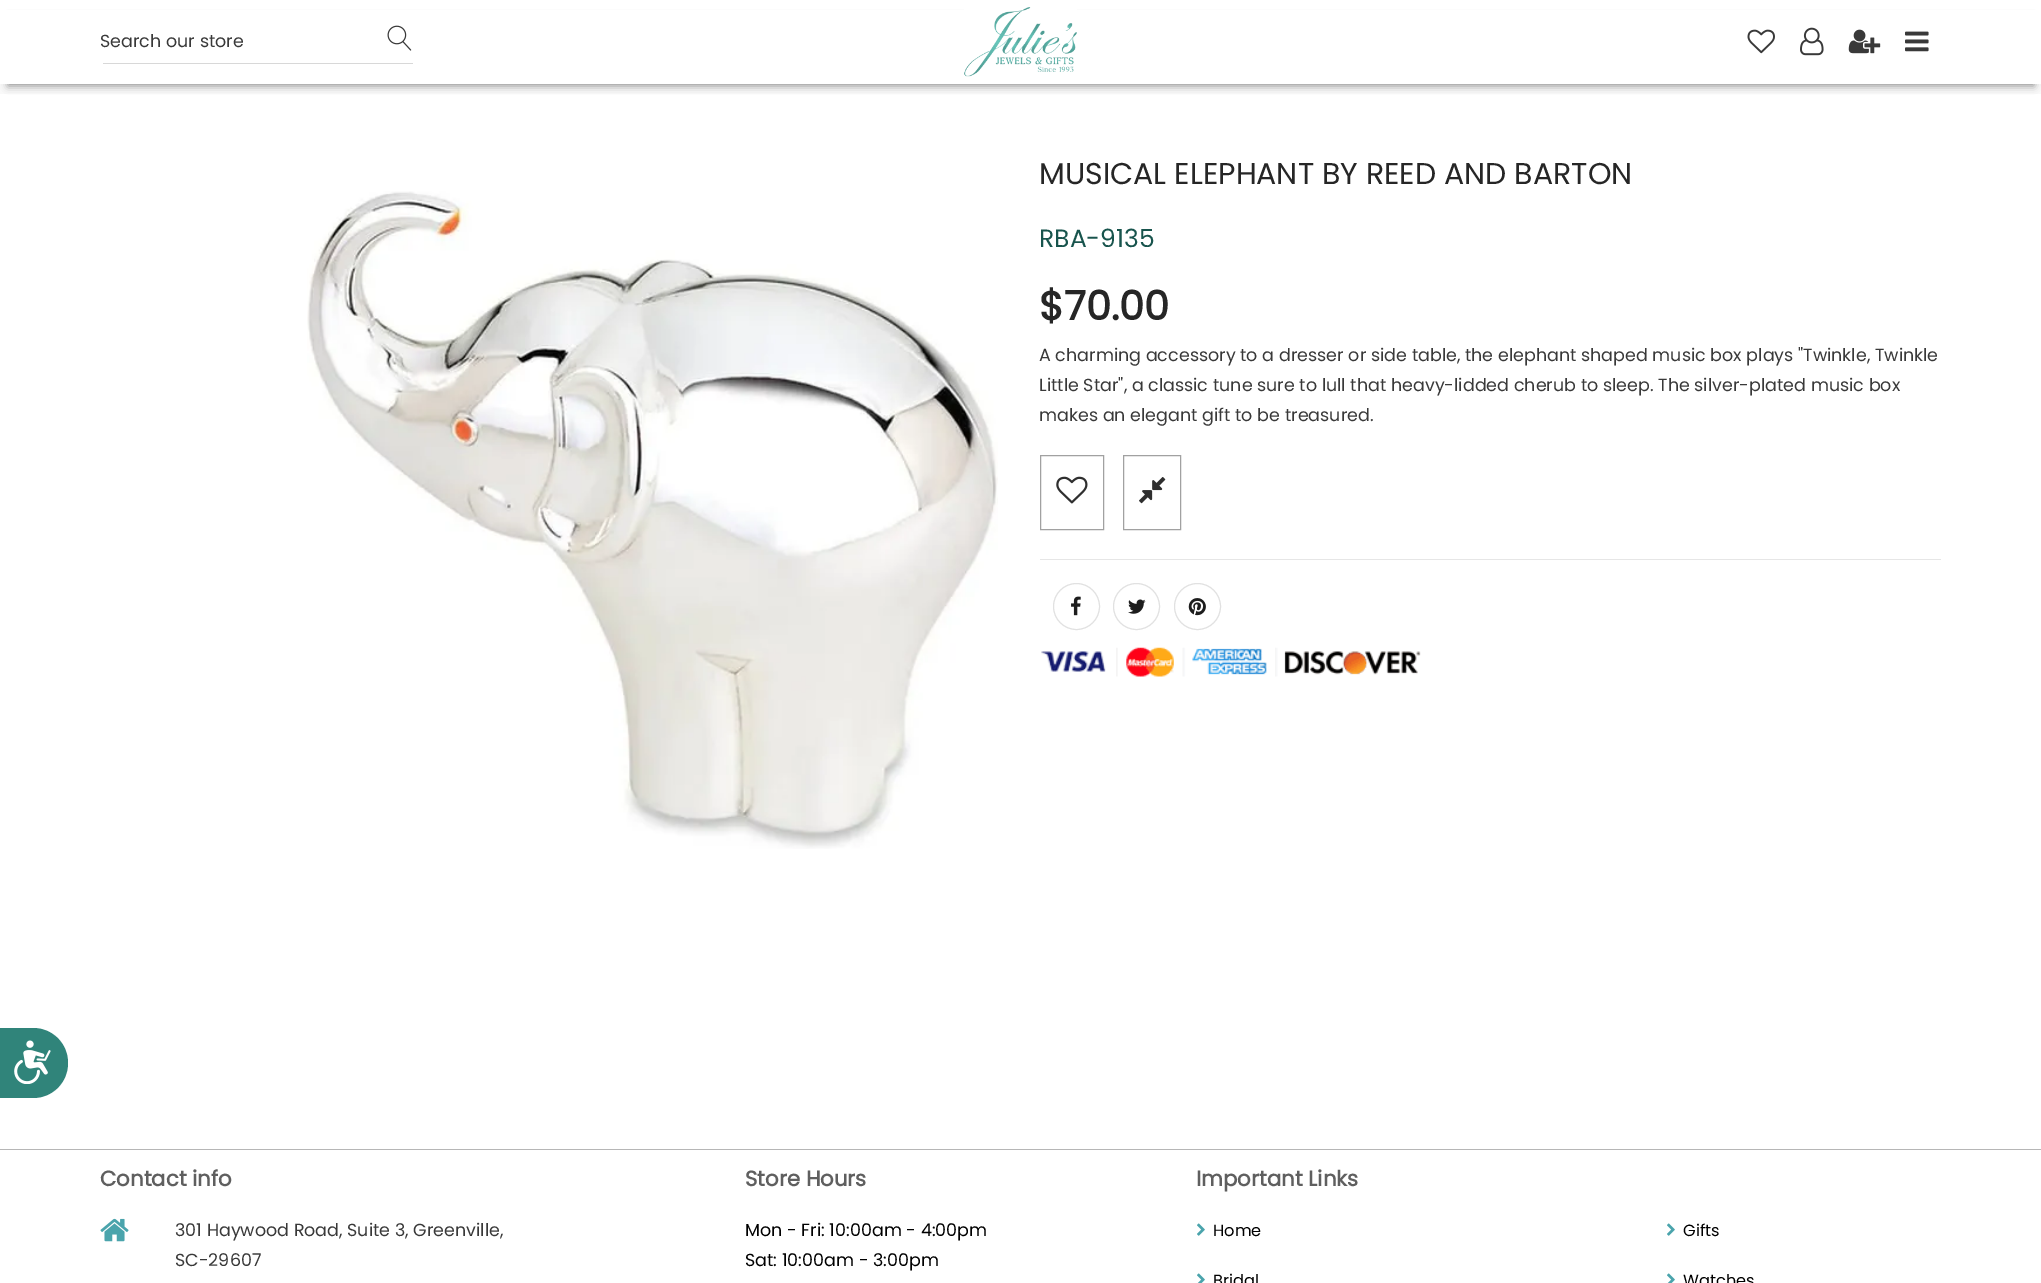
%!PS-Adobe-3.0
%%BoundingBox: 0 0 2041 1283
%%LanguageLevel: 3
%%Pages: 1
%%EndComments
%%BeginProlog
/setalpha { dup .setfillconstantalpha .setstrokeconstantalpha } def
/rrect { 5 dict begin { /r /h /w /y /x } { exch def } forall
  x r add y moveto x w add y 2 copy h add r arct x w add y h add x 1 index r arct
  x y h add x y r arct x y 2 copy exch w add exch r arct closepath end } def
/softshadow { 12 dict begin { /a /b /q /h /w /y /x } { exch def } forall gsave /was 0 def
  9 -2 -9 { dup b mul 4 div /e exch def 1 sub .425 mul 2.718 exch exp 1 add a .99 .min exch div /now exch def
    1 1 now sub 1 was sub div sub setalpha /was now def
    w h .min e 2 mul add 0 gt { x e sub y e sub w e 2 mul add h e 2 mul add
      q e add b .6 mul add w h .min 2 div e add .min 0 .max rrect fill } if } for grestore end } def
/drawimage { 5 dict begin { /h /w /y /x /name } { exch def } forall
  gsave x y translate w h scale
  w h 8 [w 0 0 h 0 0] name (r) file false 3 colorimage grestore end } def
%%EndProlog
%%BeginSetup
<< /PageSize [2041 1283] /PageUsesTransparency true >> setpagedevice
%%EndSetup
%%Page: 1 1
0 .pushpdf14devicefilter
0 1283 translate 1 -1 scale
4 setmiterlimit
1 setgray
0 0 2041 1283 rectfill
0.188 0.518 0.478 setrgbcolor
newpath 0 1028 moveto 33 1028 lineto 52.5 1028 68 1043.5 68 1063 curveto 68 1082.5 52.5 1098 33 1098 curveto 0 1098 lineto closepath fill
(images/1.raw) 14 1040 37 44 drawimage
0.976 setgray
0 84 2041 10 rectfill
0 setgray
8 18 2026 68 0 4 0.4 softshadow
1 setgray
0 10 2041 74 rectfill
0.847 setgray
103 63 310 1 rectfill
(images/2.raw) 387 25 25 26 drawimage
(images/3.raw) 964 7 113 70 drawimage
(images/4.raw) 1747 29 28 25 drawimage
(images/5.raw) 1800 27 24 29 drawimage
(images/6.raw) 1848 29 33 25 drawimage
(images/7.raw) 1905 31 24 21 drawimage
(images/8.raw) 307 191 691 658 drawimage
0.902 setgray
1040 559 901 1 rectfill
0.631 setgray
1040.5 455.5 63 74 rectstroke
(images/9.raw) 1056 476 32 28 drawimage
1123.5 455.5 57 74 rectstroke
(images/10.raw) 1139 477 27 27 drawimage
0.882 setgray
newpath 1076.5 606.5 23 0 360 arc closepath stroke
(images/11.raw) 1071 596 10 20 drawimage
newpath 1136.5 606.5 23 0 360 arc closepath stroke
(images/12.raw) 1128 599 18 15 drawimage
newpath 1197.5 606.5 23 0 360 arc closepath stroke
(images/13.raw) 1188 598 18 18 drawimage
(images/14.raw) 1041 647 380 30 drawimage
0.714 setgray
0 1149 2041 1 rectfill
(images/15.raw) 100 1218 29 24 drawimage
(images/16.raw) 1197 1223 8 13 drawimage
(images/17.raw) 1197 1273 8 10 drawimage
(images/16.raw) 1667 1223 8 13 drawimage
(images/17.raw) 1667 1273 8 10 drawimage
/Poppins-Regular [17.5 0 0 -17.5 0 0] selectfont
0.224 setgray
100 47 moveto (Search our store) show
/Poppins-Regular [30 0 0 -30 0 0] selectfont
0.149 setgray
1039 184 moveto (MUSICAL ELEPHANT BY REED AND BARTON) show
/Poppins-Regular [25 0 0 -25 0 0] selectfont
0.094 0.329 0.302 setrgbcolor
1039 247 moveto (RBA-9135) show
/Poppins-Bold [40 0 0 -40 0 0] selectfont
0.149 setgray
1039 320 moveto ($70.00) show
/Poppins-Regular [17.5 0 0 -17.5 0 0] selectfont
0.224 setgray
1039 361 moveto (A charming accessory to a dresser or side table, the elephant shaped music box plays "Twinkle, Twinkle) show
1039 391 moveto (Little Star", a classic tune sure to lull that heavy-lidded cherub to sleep. The silver-plated music box) show
1039 421 moveto (makes an elegant gift to be treasured.) show
/Poppins-Bold [21.25 0 0 -21.25 0 0] selectfont
0.373 setgray
100 1186 moveto (Contact info) show
/Poppins-Regular [17.5 0 0 -17.5 0 0] selectfont
0.224 setgray
175 1236 moveto (301 Haywood Road, Suite 3, Greenville,) show
175 1266 moveto (SC-29607) show
/Poppins-Bold [21.25 0 0 -21.25 0 0] selectfont
0.373 setgray
745 1186 moveto (Store Hours) show
/Poppins-Regular [17.5 0 0 -17.5 0 0] selectfont
0 setgray
745 1236 moveto (Mon - Fri: 10:00am - 4:00pm) show
745 1266 moveto (Sat: 10:00am - 3:00pm) show
/Poppins-Bold [21.25 0 0 -21.25 0 0] selectfont
0.373 setgray
1196 1186 moveto (Important Links) show
/Poppins-Regular [16.25 0 0 -16.25 0 0] selectfont
0 setgray
1213 1236 moveto (Home) show
1213 1286 moveto (Bridal) show
1683 1236 moveto (Gifts) show
1683 1286 moveto (Watches) show
.poppdf14devicefilter showpage
%%EOF
